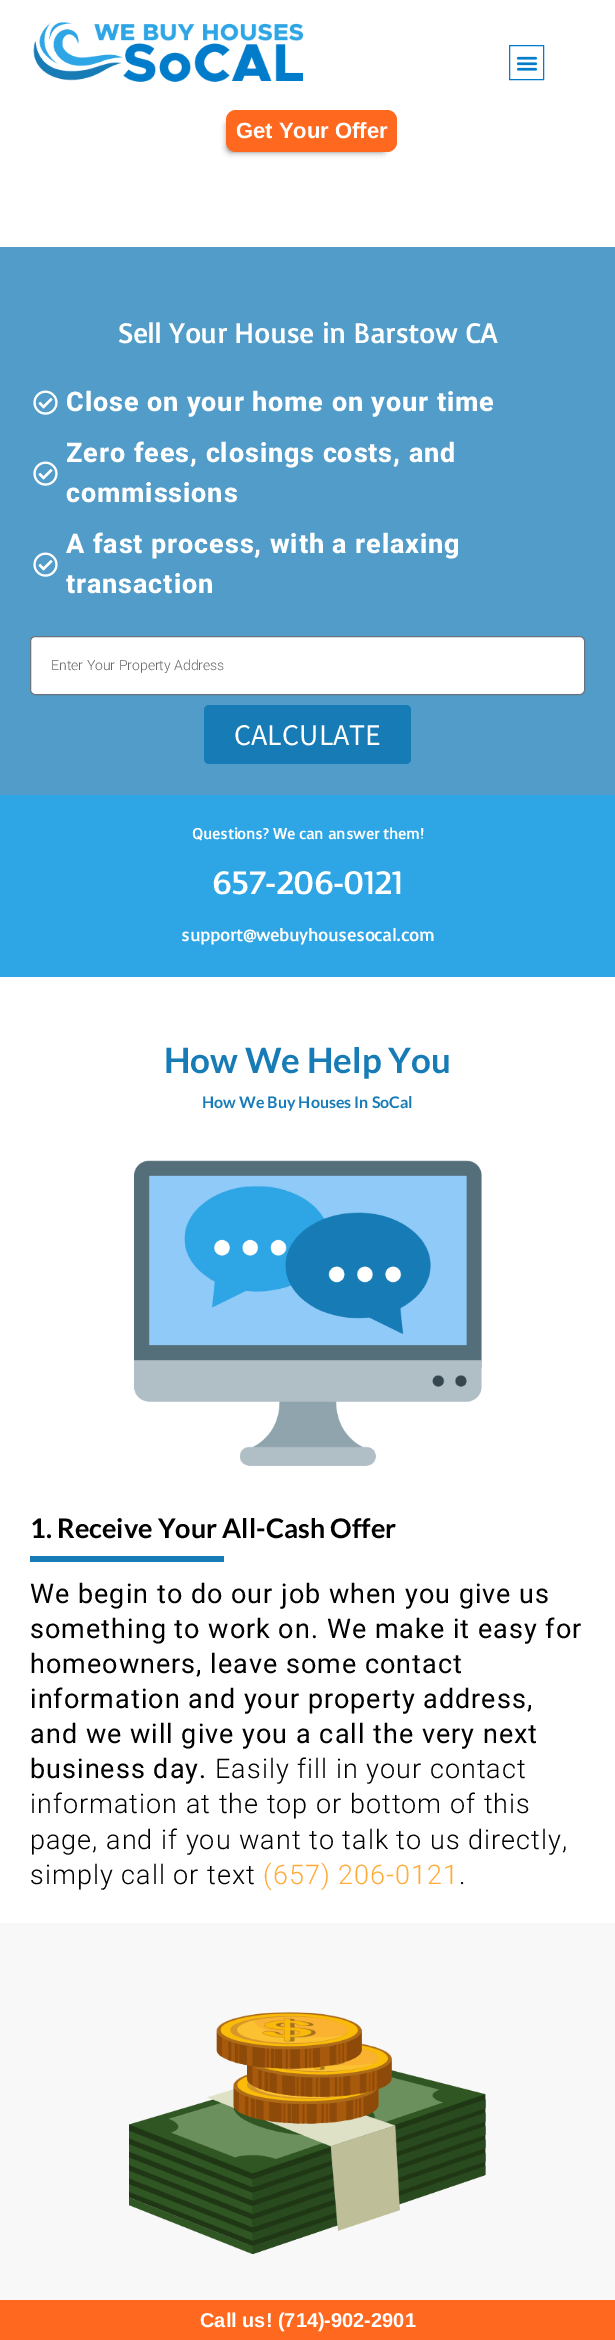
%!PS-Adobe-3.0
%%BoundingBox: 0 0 615 2340
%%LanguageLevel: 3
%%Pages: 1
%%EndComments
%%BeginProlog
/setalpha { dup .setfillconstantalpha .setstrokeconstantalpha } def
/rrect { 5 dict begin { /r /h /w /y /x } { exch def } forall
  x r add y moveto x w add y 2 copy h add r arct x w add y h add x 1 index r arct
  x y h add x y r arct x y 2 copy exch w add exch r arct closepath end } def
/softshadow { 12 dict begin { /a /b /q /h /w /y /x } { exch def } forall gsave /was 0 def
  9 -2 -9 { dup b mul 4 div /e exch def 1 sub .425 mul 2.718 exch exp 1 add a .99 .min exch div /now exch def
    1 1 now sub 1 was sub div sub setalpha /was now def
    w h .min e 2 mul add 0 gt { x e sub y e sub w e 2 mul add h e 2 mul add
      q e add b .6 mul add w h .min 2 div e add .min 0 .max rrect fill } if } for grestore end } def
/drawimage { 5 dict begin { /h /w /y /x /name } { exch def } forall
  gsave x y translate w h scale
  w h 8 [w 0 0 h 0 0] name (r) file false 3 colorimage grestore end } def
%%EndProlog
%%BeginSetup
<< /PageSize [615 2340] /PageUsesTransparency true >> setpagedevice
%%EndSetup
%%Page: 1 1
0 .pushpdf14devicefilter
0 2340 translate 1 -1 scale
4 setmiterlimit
1 setgray
0 0 615 2340 rectfill
(images/1.raw) 33 21 271 61 drawimage
0 0.486 0.796 setrgbcolor
509.5 45.5 34 34 rectstroke
(images/2.raw) 516 56 22 15 drawimage
0 setgray
227 122 159 30 4 3 0.5 softshadow
1 0.412 0.122 setrgbcolor
226 110 171 42 10 rrect fill
0.318 0.612 0.784 setrgbcolor
0 247 615 548 rectfill
(images/3.raw) 33 390 25 25 drawimage
(images/3.raw) 33 461 25 25 drawimage
(images/3.raw) 33 552 25 25 drawimage
1 setgray
30.5 636.5 554 58 4.5 rrect gsave fill grestore
0.412 0.447 0.49 setrgbcolor
stroke
0.09 0.482 0.714 setrgbcolor
204 705 207 59 5 rrect fill
0.18 0.647 0.894 setrgbcolor
0 795 615 182 rectfill
(images/4.raw) 134 1160 348 306 drawimage
0.09 0.482 0.714 setrgbcolor
30 1556 194 6 rectfill
0.973 setgray
0 1923 615 377 rectfill
(images/5.raw) 129 2012 357 242 drawimage
1 0.412 0.122 setrgbcolor
0 2300 615 40 rectfill
/LiberationSans-Bold [22 0 0 -22 0 0] selectfont
1 setgray
236 138 moveto (Get Your Offer) show
/Voces-Bold [27 0 0 -27 0 0] selectfont
118 343 moveto (Sell Your House in Barstow CA) show
/Roboto-ExtraBold [27 0 0 -27 0 0] selectfont
66 411 moveto 0.9 0 (Close on your home on your time) ashow
66 462 moveto 0.9 0 (Zero fees, closings costs, and) ashow
66 502 moveto 0.9 0 (commissions) ashow
66 553 moveto 0.9 0 (A fast process, with a relaxing) ashow
66 593 moveto 0.9 0 (transaction) ashow
/Roboto-Light [14 0 0 -14 0 0] selectfont
0.4 setgray
51 670 moveto (Enter Your Property Address) show
/SourceSansPro-Regular [30 0 0 -30 0 0] selectfont
1 setgray
234 745 moveto (CALCULATE) show
/Voces-Bold [15 0 0 -15 0 0] selectfont
192 839 moveto (Questions? We can answer them!) show
/Voces-Bold [31 0 0 -31 0 0] selectfont
212 894 moveto (657-206-0121) show
/Voces-Bold [17 0 0 -17 0 0] selectfont
181 941 moveto (support@webuyhousesocal.com) show
/Lato-Bold [35 0 0 -35 0 0] selectfont
0.09 0.482 0.714 setrgbcolor
164 1073 moveto (How We Help You) show
/Lato-Bold [16 0 0 -16 0 0] selectfont
202 1108 moveto (How We Buy Houses In SoCal) show
/Lato-Bold [27 0 0 -27 0 0] selectfont
0 setgray
30 1538 moveto (1. Receive Your All-Cash Offer) show
/Roboto-Regular [27 0 0 -27 0 0] selectfont
30 1603 moveto 1 0 (We begin to do our job when you give us) ashow
30 1638 moveto 1 0 (something to work on. We make it easy for) ashow
30 1673 moveto 1 0 (homeowners, leave some contact) ashow
30 1708 moveto 1 0 (information and your property address,) ashow
30 1743 moveto 1 0 (and we will give you a call the very next) ashow
30 1778 moveto 1 0 (business day.) ashow
/Roboto-Light [27 0 0 -27 0 0] selectfont
215 1778 moveto 1 0 (Easily fill in your contact) ashow
30 1813 moveto 1 0 (information at the top or bottom of this) ashow
30 1849 moveto 1 0 (page, and if you want to talk to us directly,) ashow
30 1884 moveto 1 0 (simply call or text) ashow
1 0.671 0.227 setrgbcolor
263 1884 moveto 1 0 (\(657\) 206-0121) ashow
0 setgray
459 1884 moveto 1 0 (.) ashow
/LiberationSans-Bold [20 0 0 -20 0 0] selectfont
1 setgray
200 2327 moveto (Call us! \(714\)-902-2901) show
.poppdf14devicefilter showpage
%%EOF
